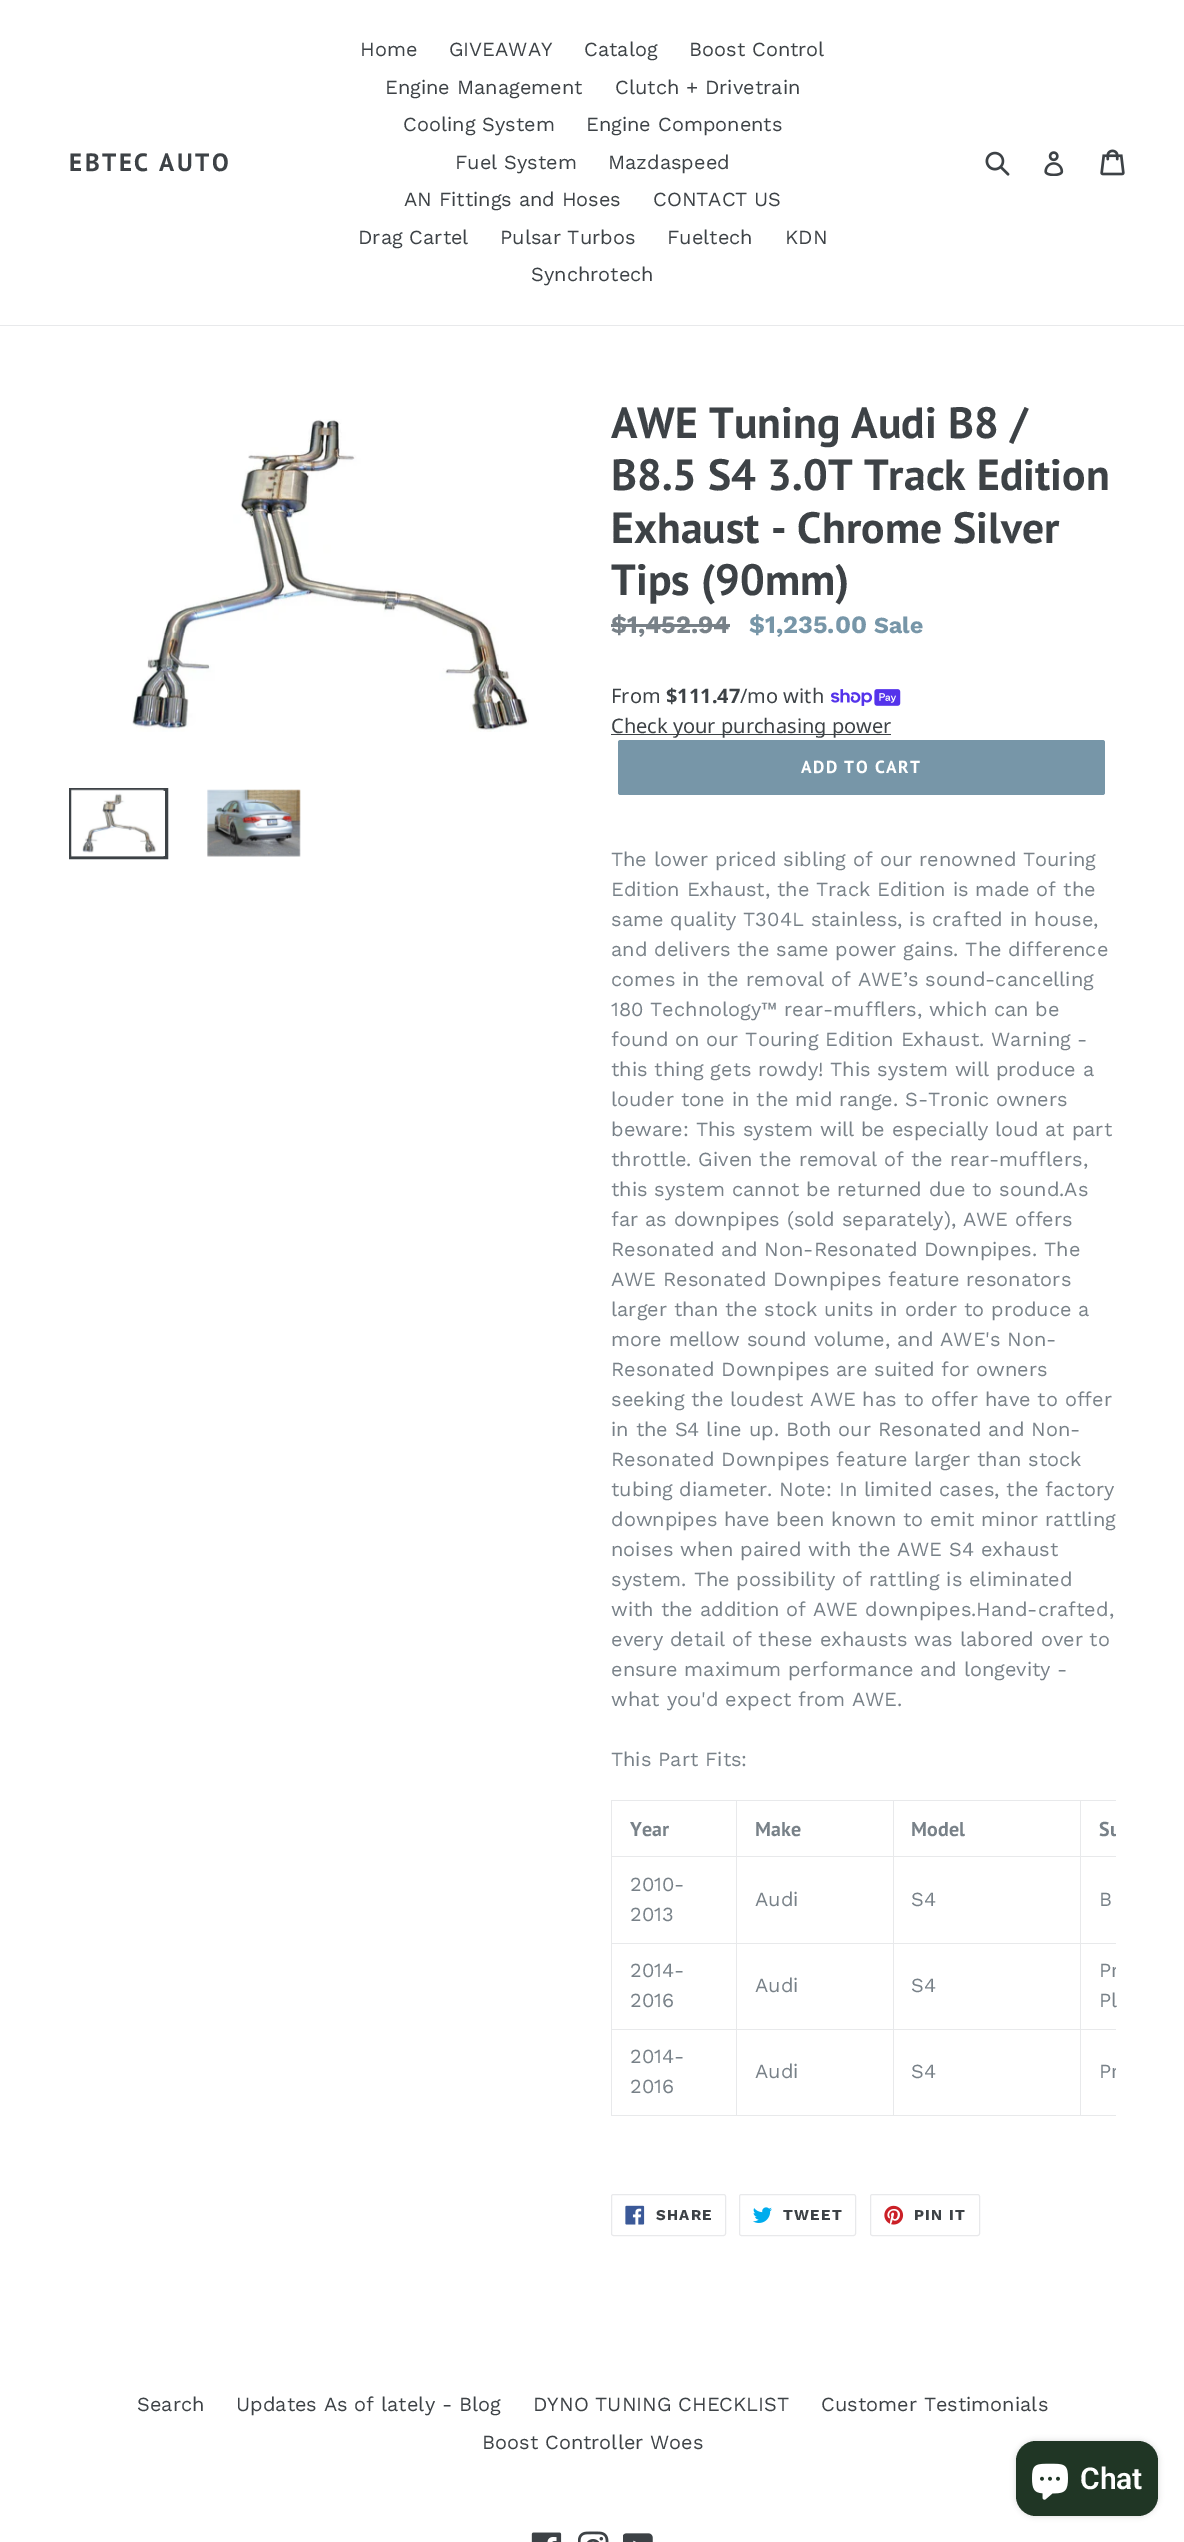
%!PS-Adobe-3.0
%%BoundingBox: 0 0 1184 2542
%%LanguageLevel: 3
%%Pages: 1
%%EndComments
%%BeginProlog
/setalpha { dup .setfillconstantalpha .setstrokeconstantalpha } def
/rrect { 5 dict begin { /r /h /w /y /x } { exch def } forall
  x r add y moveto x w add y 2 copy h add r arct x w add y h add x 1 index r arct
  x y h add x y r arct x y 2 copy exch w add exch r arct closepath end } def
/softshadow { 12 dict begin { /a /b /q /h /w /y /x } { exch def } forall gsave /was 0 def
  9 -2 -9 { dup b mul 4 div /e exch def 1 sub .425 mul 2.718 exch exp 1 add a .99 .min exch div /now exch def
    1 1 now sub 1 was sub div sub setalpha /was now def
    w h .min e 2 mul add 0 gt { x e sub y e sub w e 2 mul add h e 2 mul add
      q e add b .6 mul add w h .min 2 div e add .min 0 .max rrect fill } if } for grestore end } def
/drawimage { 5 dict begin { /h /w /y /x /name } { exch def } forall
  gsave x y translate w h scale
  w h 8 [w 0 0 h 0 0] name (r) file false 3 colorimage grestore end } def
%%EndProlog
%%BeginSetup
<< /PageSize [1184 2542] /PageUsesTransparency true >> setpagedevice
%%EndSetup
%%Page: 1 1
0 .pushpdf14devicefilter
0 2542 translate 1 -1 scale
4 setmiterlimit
1 setgray
0 0 1184 2542 rectfill
0.91 0.914 0.922 setrgbcolor
0 325 1184 1 rectfill
(images/1.raw) 985 151 25 25 drawimage
(images/2.raw) 1044 151 20 25 drawimage
(images/3.raw) 1100 149 25 27 drawimage
(images/4.raw) 132 419 397 313 drawimage
0.239 0.259 0.275 setrgbcolor
3 setlinewidth
70.5 789.5 96 68 rectstroke
(images/5.raw) 71 789 94 68 drawimage
(images/6.raw) 207 789 94 68 drawimage
0.471 0.506 0.533 setrgbcolor
611 624 119 3 rectfill
(images/7.raw) 831 689 70 17 drawimage
0.239 0.259 0.275 setrgbcolor
611 734 280 1 rectfill
0.467 0.588 0.659 setrgbcolor
618 740 487 55 2.5 rrect fill
0.91 0.914 0.922 setrgbcolor
1080 1800 36 1 rectfill
1080 1856 36 1 rectfill
1080 1943 36 1 rectfill
1080 2029 36 1 rectfill
1080 2115 36 1 rectfill
1080 2029 1 87 rectfill
893 2029 188 1 rectfill
1080 1943 1 87 rectfill
893 1943 188 1 rectfill
1080 1856 1 88 rectfill
893 1856 188 1 rectfill
1080 1800 1 58 rectfill
893 1800 188 1 rectfill
893 2115 188 1 rectfill
893 2029 1 87 rectfill
736 2029 158 1 rectfill
893 1943 1 87 rectfill
736 1943 158 1 rectfill
893 1856 1 88 rectfill
736 1856 158 1 rectfill
893 1800 1 58 rectfill
736 1800 158 1 rectfill
736 2115 158 1 rectfill
736 2029 1 87 rectfill
611 2029 127 1 rectfill
736 1943 1 87 rectfill
611 1943 127 1 rectfill
736 1856 1 88 rectfill
611 1856 127 1 rectfill
736 1800 1 58 rectfill
611 1800 127 1 rectfill
611 2115 127 1 rectfill
611 2029 1 87 rectfill
611 1943 1 87 rectfill
611 1856 1 88 rectfill
611 1800 1 58 rectfill
1 setlinewidth
611.5 2194.5 114 41 2 rrect stroke
(images/8.raw) 625 2205 20 20 drawimage
739.5 2194.5 116 41 2 rrect stroke
(images/9.raw) 753 2207 19 16 drawimage
870.5 2194.5 109 41 2 rrect stroke
(images/10.raw) 884 2205 20 20 drawimage
(images/11.raw) 531 2532 31 10 drawimage
(images/12.raw) 578 2531 31 11 drawimage
(images/13.raw) 623 2533 30 9 drawimage
0 setgray
1016 2441 142 75 20 3 0.15 softshadow
0.125 0.212 0.145 setrgbcolor
1016 2441 142 75 20 rrect fill
(images/14.raw) 1032 2463 36 37 drawimage
/PTSans-Bold [25 0 0 -25 0 0] selectfont
0.239 0.259 0.275 setrgbcolor
69 171 moveto 2.5 0 (EBTEC AUTO) ashow
/WorkSans-Regular [20 0 0 -20 0 0] selectfont
360 56 moveto (Home) show
449 56 moveto (GIVEAWAY) show
584 56 moveto (Catalog) show
689 56 moveto (Boost Control) show
385 94 moveto (Engine Management) show
615 94 moveto (Clutch + Drivetrain) show
403 131 moveto (Cooling System) show
586 131 moveto (Engine Components) show
455 169 moveto (Fuel System) show
608 169 moveto (Mazdaspeed) show
404 206 moveto (AN Fittings and Hoses) show
653 206 moveto (CONTACT US) show
358 244 moveto (Drag Cartel) show
500 244 moveto (Pulsar Turbos) show
667 244 moveto (Fueltech) show
785 244 moveto (KDN) show
531 281 moveto (Synchrotech) show
/PTSans-Bold [43.75 0 0 -43.75 0 0] selectfont
611 438 moveto (AWE Tuning Audi B8 /) show
611 490 moveto (B8.5 S4 3.0T Track Edition) show
611 543 moveto (Exhaust - Chrome Silver) show
611 595 moveto (Tips \(90mm\)) show
/WorkSans-Bold [25 0 0 -25 0 0] selectfont
0.471 0.506 0.533 setrgbcolor
611 633 moveto ($1,452.94) show
0.467 0.588 0.659 setrgbcolor
749 633 moveto ($1,235.00) show
/WorkSans-Bold [23 0 0 -23 0 0] selectfont
874 633 moveto (Sale) show
/NotoSans-Regular [20 0 0 -20 0 0] selectfont
0.239 0.259 0.275 setrgbcolor
611 703 moveto (From) show
/NotoSans-Bold [20 0 0 -20 0 0] selectfont
666 703 moveto ($111.47) show
/NotoSans-Regular [20 0 0 -20 0 0] selectfont
740 703 moveto (/mo with) show
611 733 moveto (Check your purchasing power) show
/PTSans-Bold [17.5 0 0 -17.5 0 0] selectfont
1 setgray
801 773 moveto 1.4 0 (ADD TO CART) ashow
/WorkSans-Regular [20 0 0 -20 0 0] selectfont
0.471 0.506 0.533 setrgbcolor
611 866 moveto (The lower priced sibling of our renowned Touring) show
611 896 moveto (Edition Exhaust, the Track Edition is made of the) show
611 926 moveto (same quality T304L stainless, is crafted in house,) show
611 956 moveto (and delivers the same power gains. The difference) show
611 986 moveto (comes in the removal of AWE’s sound-cancelling) show
611 1016 moveto (180 Technology™ rear-mufflers, which can be) show
611 1046 moveto (found on our Touring Edition Exhaust. Warning -) show
611 1076 moveto (this thing gets rowdy! This system will produce a) show
611 1106 moveto (louder tone in the mid range. S-Tronic owners) show
611 1136 moveto (beware: This system will be especially loud at part) show
611 1166 moveto (throttle. Given the removal of the rear-mufflers,) show
611 1196 moveto (this system cannot be returned due to sound.As) show
611 1226 moveto (far as downpipes \(sold separately\), AWE offers) show
611 1256 moveto (Resonated and Non-Resonated Downpipes. The) show
611 1286 moveto (AWE Resonated Downpipes feature resonators) show
611 1316 moveto (larger than the stock units in order to produce a) show
611 1346 moveto (more mellow sound volume, and AWE's Non-) show
611 1376 moveto (Resonated Downpipes are suited for owners) show
611 1406 moveto (seeking the loudest AWE has to offer have to offer) show
611 1436 moveto (in the S4 line up. Both our Resonated and Non-) show
611 1466 moveto (Resonated Downpipes feature larger than stock) show
611 1496 moveto (tubing diameter. Note: In limited cases, the factory) show
611 1526 moveto (downpipes have been known to emit minor rattling) show
611 1556 moveto (noises when paired with the AWE S4 exhaust) show
611 1586 moveto (system. The possibility of rattling is eliminated) show
611 1616 moveto (with the addition of AWE downpipes.Hand-crafted,) show
611 1646 moveto (every detail of these exhausts was labored over to) show
611 1676 moveto (ensure maximum performance and longevity -) show
611 1706 moveto (what you'd expect from AWE.) show
611 1766 moveto (This Part Fits:) show
/PTSans-Bold [20 0 0 -20 0 0] selectfont
630 1836 moveto (Year) show
755 1836 moveto (Make) show
911 1836 moveto (Model) show
gsave
611 1800 505 350 rectclip
1099 1836 moveto (Su) show
grestore
/WorkSans-Regular [20 0 0 -20 0 0] selectfont
630 1891 moveto (2010-) show
630 1921 moveto (2013) show
755 1906 moveto (Audi) show
911 1906 moveto (S4) show
1099 1906 moveto (B) show
630 1977 moveto (2014-) show
630 2007 moveto (2016) show
755 1992 moveto (Audi) show
911 1992 moveto (S4) show
gsave
611 1800 505 350 rectclip
1099 1977 moveto (Pr) show
grestore
1099 2007 moveto (Pl) show
630 2063 moveto (2014-) show
630 2093 moveto (2016) show
755 2078 moveto (Audi) show
911 2078 moveto (S4) show
gsave
611 1800 505 350 rectclip
1099 2078 moveto (Pr) show
grestore
/WorkSans-Bold [15 0 0 -15 0 0] selectfont
0.239 0.259 0.275 setrgbcolor
656 2220 moveto 1.25 0 (SHARE) ashow
783 2220 moveto 1.25 0 (TWEET) ashow
914 2220 moveto 1.25 0 (PIN IT) ashow
/WorkSans-Regular [20 0 0 -20 0 0] selectfont
137 2411 moveto (Search) show
236 2411 moveto (Updates As of lately - Blog) show
533 2411 moveto (DYNO TUNING CHECKLIST) show
821 2411 moveto (Customer Testimonials) show
482 2449 moveto (Boost Controller Woes) show
/Roboto-SemiBold [30 0 0 -30 0 0] selectfont
1 setgray
1080 2489 moveto (Chat) show
.poppdf14devicefilter showpage
%%EOF
